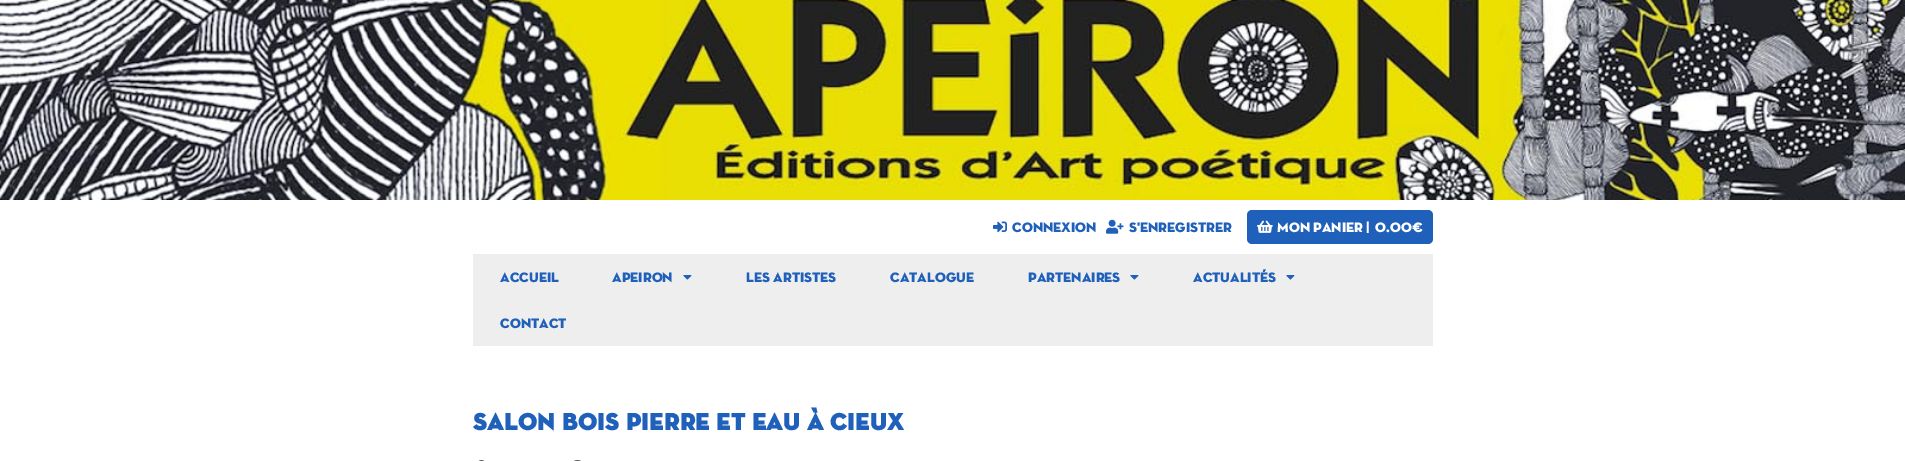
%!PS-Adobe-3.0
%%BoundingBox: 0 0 1905 461
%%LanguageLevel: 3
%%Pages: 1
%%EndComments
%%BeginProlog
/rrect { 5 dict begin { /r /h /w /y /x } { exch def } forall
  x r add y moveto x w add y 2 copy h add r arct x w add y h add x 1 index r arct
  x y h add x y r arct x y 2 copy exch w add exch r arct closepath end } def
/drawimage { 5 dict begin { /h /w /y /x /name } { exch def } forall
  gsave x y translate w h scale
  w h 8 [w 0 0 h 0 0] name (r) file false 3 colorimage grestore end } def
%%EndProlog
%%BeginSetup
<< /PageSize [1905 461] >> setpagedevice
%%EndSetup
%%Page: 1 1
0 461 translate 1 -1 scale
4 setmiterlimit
1 setgray
0 0 1905 461 rectfill
(images/1.raw) 0 0 1905 200 drawimage
(images/2.raw) 993 221 14 12 drawimage
(images/3.raw) 1106 219 18 15 drawimage
0.122 0.376 0.729 setrgbcolor
1247 210 186 34 5 rrect fill
(images/4.raw) 1257 220 16 13 drawimage
0.933 setgray
473 254 960 92 rectfill
(images/5.raw) 683 275 9 5 drawimage
(images/5.raw) 1130 275 9 5 drawimage
(images/5.raw) 1286 275 9 5 drawimage
(images/6.raw) 478 460 7 1 drawimage
(images/7.raw) 574 460 7 1 drawimage
/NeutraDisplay-Regular [14 0 0 -14 0 0] selectfont
0.122 0.376 0.729 setrgbcolor
1012 232 moveto (Connexion) show
1129 232 moveto (S'enregistrer) show
1 setgray
1277 232 moveto (MON PANIER |) show
1375 232 moveto (0.00€) show
0.122 0.376 0.729 setrgbcolor
500 282 moveto (Accueil) show
612 282 moveto (Apeiron) show
746 282 moveto (Les artistes) show
890 282 moveto (Catalogue) show
1028 282 moveto (Partenaires) show
1193 282 moveto (Actualités) show
500 328 moveto (Contact) show
/NeutraDisplay-Bold [24 0 0 -24 0 0] selectfont
473 430 moveto 0.6 0 (SALON BOIS PIERRE ET EAU À CIEUX) ashow
showpage
%%EOF
